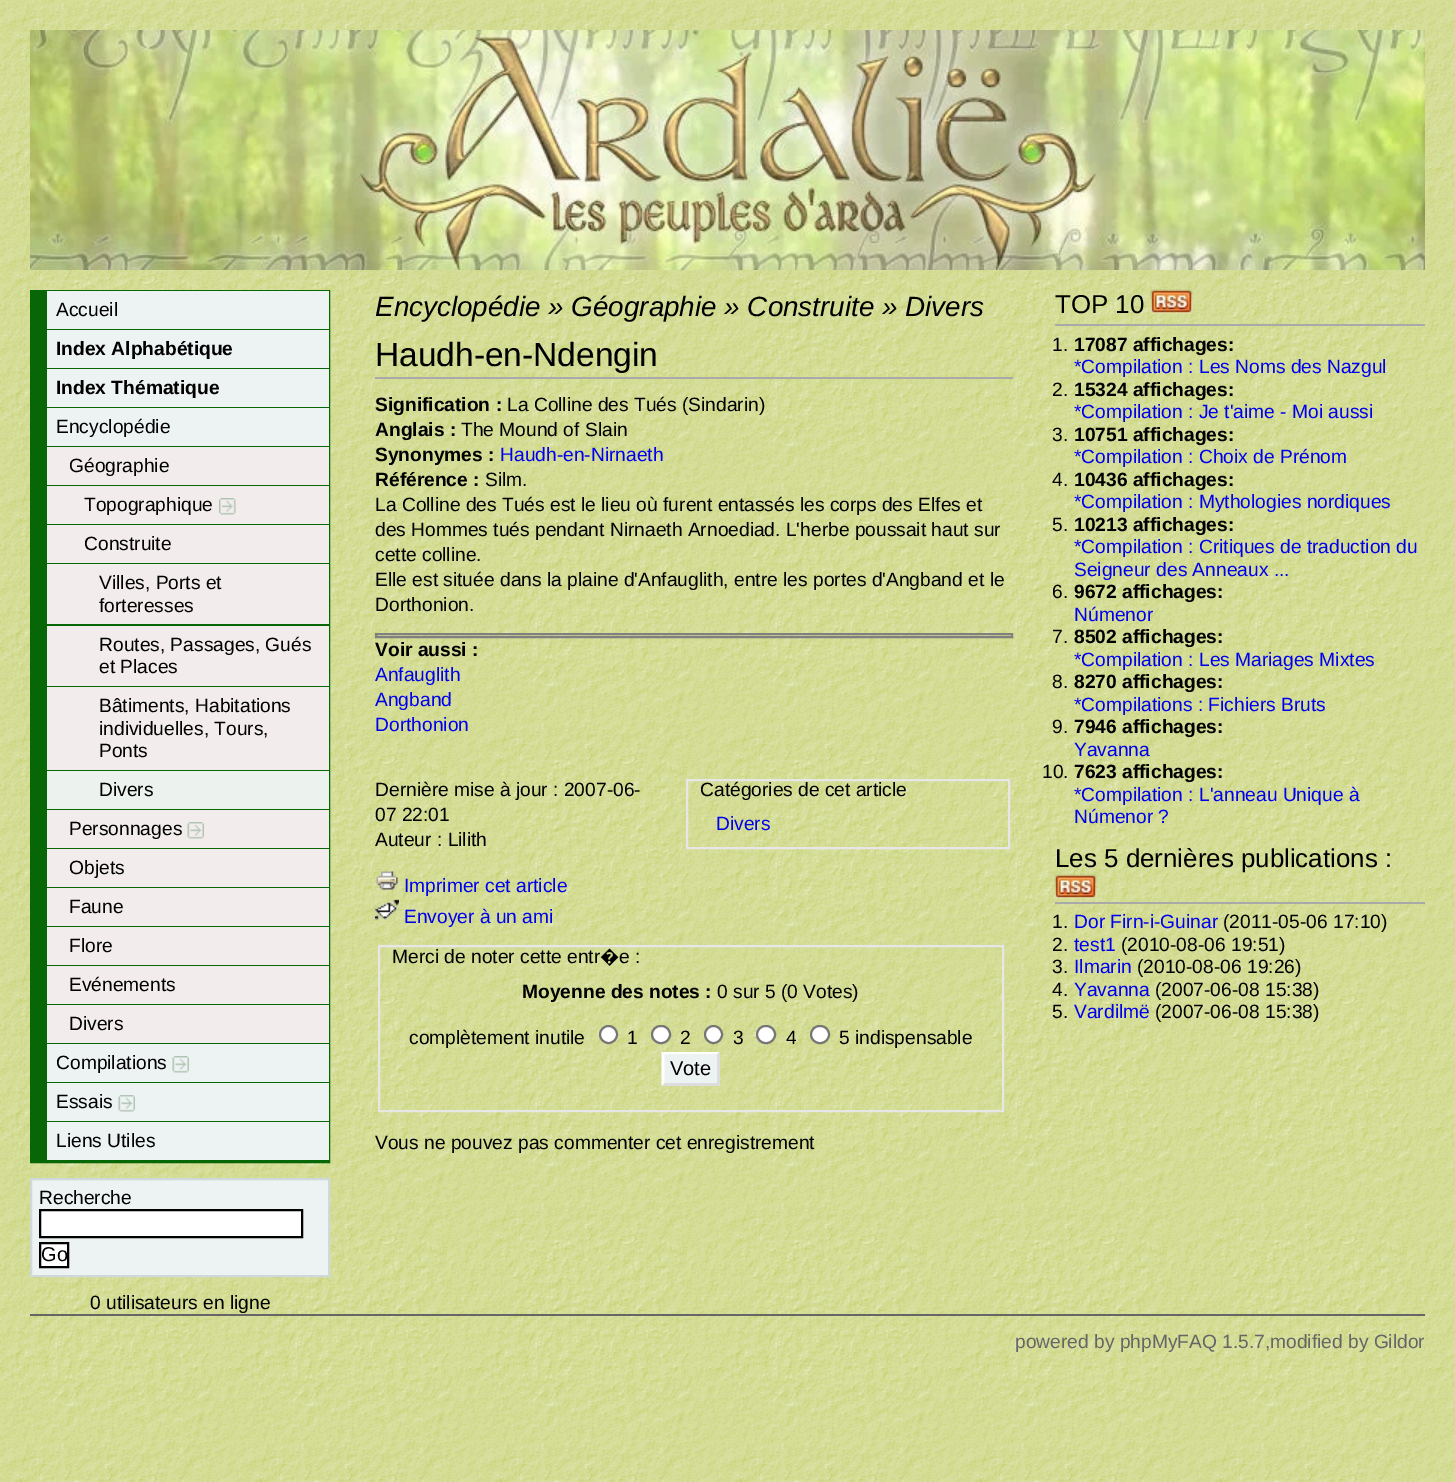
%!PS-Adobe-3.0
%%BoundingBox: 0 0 1455 1482
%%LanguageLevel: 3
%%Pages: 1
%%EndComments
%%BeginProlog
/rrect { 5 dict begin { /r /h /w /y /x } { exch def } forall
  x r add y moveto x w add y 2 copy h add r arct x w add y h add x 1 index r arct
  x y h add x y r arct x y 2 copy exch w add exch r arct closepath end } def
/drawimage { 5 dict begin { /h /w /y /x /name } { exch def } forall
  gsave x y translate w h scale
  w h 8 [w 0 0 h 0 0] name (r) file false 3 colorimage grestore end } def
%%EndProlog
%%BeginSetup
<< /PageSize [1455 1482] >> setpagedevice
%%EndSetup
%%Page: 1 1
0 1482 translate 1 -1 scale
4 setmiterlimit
1 setgray
0 0 1455 1482 rectfill
(images/1.raw) 0 1398 1455 84 drawimage
(images/2.raw) 0 0 1455 1398 drawimage
(images/3.raw) 30 30 1395 240 drawimage
0.027 0.404 0.027 setrgbcolor
2 setlinewidth
31 291 298 871 rectstroke
32 292 15 869 rectfill
0.929 0.949 0.949 setrgbcolor
47 291 282 38 rectfill
0.027 0.404 0.027 setrgbcolor
47 329 282 1 rectfill
0.929 0.949 0.949 setrgbcolor
47 330 282 38 rectfill
0.027 0.404 0.027 setrgbcolor
47 368 282 1 rectfill
0.929 0.949 0.949 setrgbcolor
47 369 282 38 rectfill
0.027 0.404 0.027 setrgbcolor
47 407 282 1 rectfill
0.929 0.949 0.949 setrgbcolor
47 408 282 38 rectfill
0.027 0.404 0.027 setrgbcolor
47 446 282 1 rectfill
0.949 0.925 0.925 setrgbcolor
47 447 282 38 rectfill
0.027 0.404 0.027 setrgbcolor
47 485 282 1 rectfill
0.949 0.925 0.925 setrgbcolor
47 486 282 38 rectfill
0.027 0.404 0.027 setrgbcolor
47 524 282 1 rectfill
(images/4.raw) 219 498 17 17 drawimage
0.949 0.925 0.925 setrgbcolor
47 525 282 38 rectfill
0.027 0.404 0.027 setrgbcolor
47 563 282 1 rectfill
0.949 0.925 0.925 setrgbcolor
47 564 282 60 rectfill
0.027 0.404 0.027 setrgbcolor
47 624 282 2 rectfill
0.949 0.925 0.925 setrgbcolor
47 626 282 60 rectfill
0.027 0.404 0.027 setrgbcolor
47 686 282 1 rectfill
0.949 0.925 0.925 setrgbcolor
47 687 282 83 rectfill
0.027 0.404 0.027 setrgbcolor
47 770 282 1 rectfill
0.925 0.949 0.929 setrgbcolor
47 771 282 38 rectfill
0.027 0.404 0.027 setrgbcolor
47 809 282 1 rectfill
0.949 0.925 0.925 setrgbcolor
47 810 282 38 rectfill
0.027 0.404 0.027 setrgbcolor
47 848 282 1 rectfill
(images/5.raw) 187 822 17 17 drawimage
0.949 0.925 0.925 setrgbcolor
47 849 282 38 rectfill
0.027 0.404 0.027 setrgbcolor
47 887 282 1 rectfill
0.949 0.925 0.925 setrgbcolor
47 888 282 38 rectfill
0.027 0.404 0.027 setrgbcolor
47 926 282 1 rectfill
0.949 0.925 0.925 setrgbcolor
47 927 282 38 rectfill
0.027 0.404 0.027 setrgbcolor
47 965 282 1 rectfill
0.949 0.925 0.925 setrgbcolor
47 966 282 38 rectfill
0.027 0.404 0.027 setrgbcolor
47 1004 282 1 rectfill
0.949 0.925 0.925 setrgbcolor
47 1005 282 38 rectfill
0.027 0.404 0.027 setrgbcolor
47 1043 282 1 rectfill
0.929 0.949 0.949 setrgbcolor
47 1044 282 38 rectfill
0.027 0.404 0.027 setrgbcolor
47 1082 282 1 rectfill
(images/6.raw) 172 1056 17 17 drawimage
0.929 0.949 0.949 setrgbcolor
47 1083 282 38 rectfill
0.027 0.404 0.027 setrgbcolor
47 1121 282 1 rectfill
(images/6.raw) 118 1095 17 17 drawimage
0.929 0.949 0.949 setrgbcolor
47 1122 282 38 rectfill
0.027 0.404 0.027 setrgbcolor
47 1160 282 1 rectfill
0.929 0.949 0.949 setrgbcolor
newpath 31 1179 moveto 329 1179 lineto 329 1276 lineto 31 1276 lineto closepath gsave fill grestore
0.816 0.851 0.851 setrgbcolor
stroke
1 setgray
newpath 40 1210 moveto 302 1210 lineto 302 1237 lineto 40 1237 lineto closepath gsave fill grestore
0 setgray
stroke
1 setgray
newpath 40 1243 moveto 68 1243 lineto 68 1267 lineto 40 1267 lineto closepath gsave fill grestore
0 setgray
stroke
0.663 setgray
375 377 638 2 rectfill
0.502 setgray
376 634 636 3 rectstroke
0.906 setgray
687 780 322 68 rectstroke
(images/7.raw) 376 871 22 19 drawimage
(images/8.raw) 375 899 24 21 drawimage
379 946 624 165 rectstroke
1 setgray
newpath 608.5 1034.5 8.5 0 360 arc closepath gsave fill grestore
0.463 setgray
stroke
1 setgray
652 1026 18 17 8.5 rrect gsave fill grestore
0.463 setgray
stroke
1 setgray
newpath 713.5 1034.5 8.5 0 360 arc closepath gsave fill grestore
0.463 setgray
stroke
1 setgray
757 1026 18 17 8.5 rrect gsave fill grestore
0.463 setgray
stroke
1 setgray
811 1026 18 17 8.5 rrect gsave fill grestore
0.463 setgray
stroke
0.929 0.949 0.949 setrgbcolor
662 1052 58 34 rectfill
1 setgray
newpath 662 1052 moveto 720 1052 lineto 717 1054 lineto 664 1054 lineto closepath fill
0.867 setgray
newpath 720 1051.5 moveto 720 1086 lineto 717 1083 lineto 717 1054.5 lineto closepath fill
newpath 720 1086 moveto 662 1086 lineto 664 1083 lineto 717 1083 lineto closepath fill
1 setgray
newpath 661.5 1086 moveto 661.5 1051.5 lineto 664.5 1054.5 lineto 664.5 1083 lineto closepath fill
0.663 setgray
1055 324 370 2 rectfill
(images/9.raw) 1150 289 43 25 drawimage
1055 902 370 2 rectfill
(images/10.raw) 1054 874 43 25 drawimage
0.4 setgray
30 1314 1395 2 rectfill
/LiberationSans-Regular [19.2 0 0 -19.2 0 0] selectfont
0 setgray
56 316 moveto (Accueil) show
/LiberationSans-Bold [19.2 0 0 -19.2 0 0] selectfont
56 355 moveto (Index Alphabétique) show
56 394 moveto (Index Thématique) show
/LiberationSans-Regular [19.2 0 0 -19.2 0 0] selectfont
56 433 moveto (Encyclopédie) show
69 472 moveto (Géographie) show
84 511 moveto (Topographique) show
84 550 moveto (Construite) show
99 589 moveto (Villes, Ports et) show
99 612 moveto (forteresses) show
99 651 moveto (Routes, Passages, Gués) show
99 673 moveto (et Places) show
99 712 moveto (Bâtiments, Habitations) show
99 735 moveto (individuelles, Tours,) show
99 757 moveto (Ponts) show
99 796 moveto (Divers) show
69 835 moveto (Personnages) show
69 874 moveto (Objets) show
69 913 moveto (Faune) show
69 952 moveto (Flore) show
69 991 moveto (Evénements) show
69 1030 moveto (Divers) show
56 1069 moveto (Compilations) show
56 1108 moveto (Essais) show
56 1147 moveto (Liens Utiles) show
39 1204 moveto (Recherche) show
/LiberationSans-Regular [20 0 0 -20 0 0] selectfont
41 1261 moveto (Go) show
/LiberationSans-Regular [19.2 0 0 -19.2 0 0] selectfont
90 1309 moveto (0 utilisateurs en ligne) show
/LiberationSans-Italic [27.8 0 0 -27.8 0 0] selectfont
375 316 moveto (Encyclopédie » Géographie » Construite » Divers) show
/LiberationSans-Regular [33.5 0 0 -33.5 0 0] selectfont
375 366 moveto (Haudh-en-Ndengin) show
/LiberationSans-Bold [19.2 0 0 -19.2 0 0] selectfont
375 411 moveto (Signification :) show
/LiberationSans-Regular [19.2 0 0 -19.2 0 0] selectfont
507 411 moveto (La Colline des Tués \(Sindarin\)) show
/LiberationSans-Bold [19.2 0 0 -19.2 0 0] selectfont
375 436 moveto (Anglais :) show
/LiberationSans-Regular [19.2 0 0 -19.2 0 0] selectfont
461 436 moveto (The Mound of Slain) show
/LiberationSans-Bold [19.2 0 0 -19.2 0 0] selectfont
375 461 moveto (Synonymes :) show
/LiberationSans-Regular [19.2 0 0 -19.2 0 0] selectfont
0 0 0.933 setrgbcolor
500 461 moveto (Haudh-en-Nirnaeth) show
/LiberationSans-Bold [19.2 0 0 -19.2 0 0] selectfont
0 setgray
375 486 moveto (Référence :) show
/LiberationSans-Regular [19.2 0 0 -19.2 0 0] selectfont
485 486 moveto (Silm.) show
375 511 moveto (La Colline des Tués est le lieu où furent entassés les corps des Elfes et) show
375 536 moveto (des Hommes tués pendant Nirnaeth Arnoediad. L'herbe poussait haut sur) show
375 561 moveto (cette colline.) show
375 586 moveto (Elle est située dans la plaine d'Anfauglith, entre les portes d'Angband et le) show
375 611 moveto (Dorthonion.) show
/LiberationSans-Bold [19.2 0 0 -19.2 0 0] selectfont
375 656 moveto (Voir aussi :) show
/LiberationSans-Regular [19.2 0 0 -19.2 0 0] selectfont
0 0 0.933 setrgbcolor
375 681 moveto (Anfauglith) show
375 706 moveto (Angband) show
375 731 moveto (Dorthonion) show
0 setgray
375 796 moveto (Dernière mise à jour : 2007-06-) show
375 821 moveto (07 22:01) show
375 846 moveto (Auteur : Lilith) show
700 796 moveto (Catégories de cet article) show
0 0 0.933 setrgbcolor
716 830 moveto (Divers) show
404 892 moveto (Imprimer cet article) show
404 923 moveto (Envoyer à un ami) show
0 setgray
392 963 moveto (Merci de noter cette entr) show
/NotoSans-Regular [19.2 0 0 -19.2 0 0] selectfont
600 963 moveto (�) show
/LiberationSans-Regular [19.2 0 0 -19.2 0 0] selectfont
619 963 moveto (e :) show
/LiberationSans-Bold [19.2 0 0 -19.2 0 0] selectfont
522 998 moveto (Moyenne des notes :) show
/LiberationSans-Regular [19.2 0 0 -19.2 0 0] selectfont
717 998 moveto (0 sur 5 \(0 Votes\)) show
409 1044 moveto (complètement inutile) show
627 1044 moveto (1) show
680 1044 moveto (2) show
733 1044 moveto (3) show
786 1044 moveto (4) show
839 1044 moveto (5 indispensable) show
/LiberationSans-Regular [20 0 0 -20 0 0] selectfont
670 1075 moveto (Vote) show
/LiberationSans-Regular [19.2 0 0 -19.2 0 0] selectfont
375 1149 moveto (Vous ne pouvez pas commenter cet enregistrement) show
/LiberationSans-Regular [25.9 0 0 -25.9 0 0] selectfont
1055 313 moveto (TOP 10) show
/LiberationSans-Regular [19.2 0 0 -19.2 0 0] selectfont
1052 351 moveto (1.) show
/LiberationSans-Bold [19.2 0 0 -19.2 0 0] selectfont
1074 351 moveto (17087 affichages:) show
/LiberationSans-Regular [19.2 0 0 -19.2 0 0] selectfont
0 0 0.933 setrgbcolor
1074 373 moveto (*Compilation : Les Noms des Nazgul) show
0 setgray
1052 396 moveto (2.) show
/LiberationSans-Bold [19.2 0 0 -19.2 0 0] selectfont
1074 396 moveto (15324 affichages:) show
/LiberationSans-Regular [19.2 0 0 -19.2 0 0] selectfont
0 0 0.933 setrgbcolor
1074 418 moveto (*Compilation : Je t'aime - Moi aussi) show
0 setgray
1052 441 moveto (3.) show
/LiberationSans-Bold [19.2 0 0 -19.2 0 0] selectfont
1074 441 moveto (10751 affichages:) show
/LiberationSans-Regular [19.2 0 0 -19.2 0 0] selectfont
0 0 0.933 setrgbcolor
1074 463 moveto (*Compilation : Choix de Prénom) show
0 setgray
1052 486 moveto (4.) show
/LiberationSans-Bold [19.2 0 0 -19.2 0 0] selectfont
1074 486 moveto (10436 affichages:) show
/LiberationSans-Regular [19.2 0 0 -19.2 0 0] selectfont
0 0 0.933 setrgbcolor
1074 508 moveto (*Compilation : Mythologies nordiques) show
0 setgray
1052 531 moveto (5.) show
/LiberationSans-Bold [19.2 0 0 -19.2 0 0] selectfont
1074 531 moveto (10213 affichages:) show
/LiberationSans-Regular [19.2 0 0 -19.2 0 0] selectfont
0 0 0.933 setrgbcolor
1074 553 moveto (*Compilation : Critiques de traduction du) show
1074 576 moveto (Seigneur des Anneaux ...) show
0 setgray
1052 598 moveto (6.) show
/LiberationSans-Bold [19.2 0 0 -19.2 0 0] selectfont
1074 598 moveto (9672 affichages:) show
/LiberationSans-Regular [19.2 0 0 -19.2 0 0] selectfont
0 0 0.933 setrgbcolor
1074 621 moveto (Númenor) show
0 setgray
1052 643 moveto (7.) show
/LiberationSans-Bold [19.2 0 0 -19.2 0 0] selectfont
1074 643 moveto (8502 affichages:) show
/LiberationSans-Regular [19.2 0 0 -19.2 0 0] selectfont
0 0 0.933 setrgbcolor
1074 666 moveto (*Compilation : Les Mariages Mixtes) show
0 setgray
1052 688 moveto (8.) show
/LiberationSans-Bold [19.2 0 0 -19.2 0 0] selectfont
1074 688 moveto (8270 affichages:) show
/LiberationSans-Regular [19.2 0 0 -19.2 0 0] selectfont
0 0 0.933 setrgbcolor
1074 711 moveto (*Compilations : Fichiers Bruts) show
0 setgray
1052 733 moveto (9.) show
/LiberationSans-Bold [19.2 0 0 -19.2 0 0] selectfont
1074 733 moveto (7946 affichages:) show
/LiberationSans-Regular [19.2 0 0 -19.2 0 0] selectfont
0 0 0.933 setrgbcolor
1074 756 moveto (Yavanna) show
0 setgray
1042 778 moveto (10.) show
/LiberationSans-Bold [19.2 0 0 -19.2 0 0] selectfont
1074 778 moveto (7623 affichages:) show
/LiberationSans-Regular [19.2 0 0 -19.2 0 0] selectfont
0 0 0.933 setrgbcolor
1074 801 moveto (*Compilation : L'anneau Unique à) show
1074 823 moveto (Númenor ?) show
/LiberationSans-Regular [25.9 0 0 -25.9 0 0] selectfont
0 setgray
1055 867 moveto (Les 5 dernières publications :) show
/LiberationSans-Regular [19.2 0 0 -19.2 0 0] selectfont
1052 928 moveto (1.) show
0 0 0.933 setrgbcolor
1074 928 moveto (Dor Firn-i-Guinar) show
0 setgray
1223 928 moveto (\(2011-05-06 17:10\)) show
1052 951 moveto (2.) show
0 0 0.933 setrgbcolor
1074 951 moveto (test1) show
0 setgray
1121 951 moveto (\(2010-08-06 19:51\)) show
1052 973 moveto (3.) show
0 0 0.933 setrgbcolor
1074 973 moveto (Ilmarin) show
0 setgray
1137 973 moveto (\(2010-08-06 19:26\)) show
1052 996 moveto (4.) show
0 0 0.933 setrgbcolor
1074 996 moveto (Yavanna) show
0 setgray
1155 996 moveto (\(2007-06-08 15:38\)) show
1052 1018 moveto (5.) show
0 0 0.933 setrgbcolor
1074 1018 moveto (Vardilmë) show
0 setgray
1155 1018 moveto (\(2007-06-08 15:38\)) show
0.4 setgray
1015 1348 moveto (powered by phpMyFAQ 1.5.7,modified by Gildor) show
showpage
%%EOF
